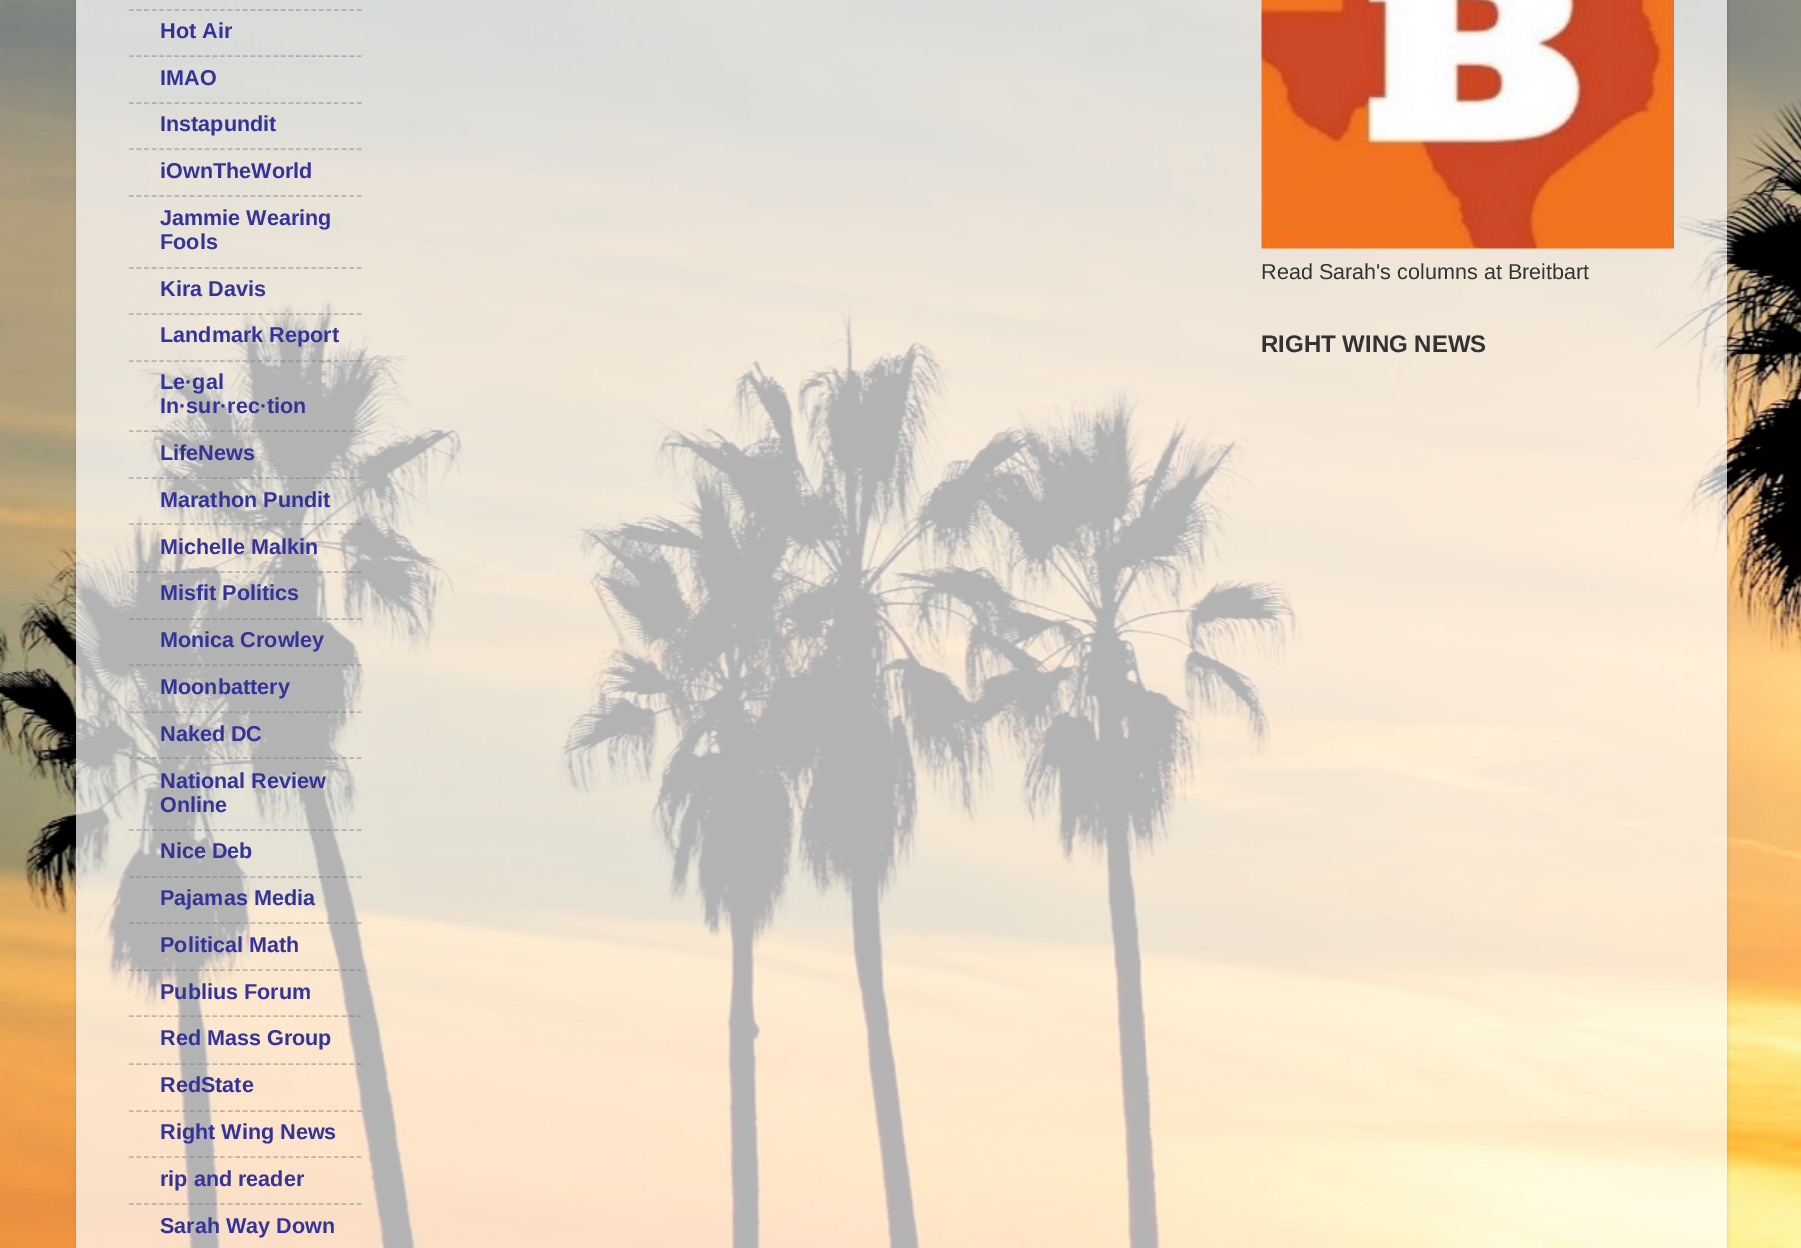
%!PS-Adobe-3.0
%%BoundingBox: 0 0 1801 1248
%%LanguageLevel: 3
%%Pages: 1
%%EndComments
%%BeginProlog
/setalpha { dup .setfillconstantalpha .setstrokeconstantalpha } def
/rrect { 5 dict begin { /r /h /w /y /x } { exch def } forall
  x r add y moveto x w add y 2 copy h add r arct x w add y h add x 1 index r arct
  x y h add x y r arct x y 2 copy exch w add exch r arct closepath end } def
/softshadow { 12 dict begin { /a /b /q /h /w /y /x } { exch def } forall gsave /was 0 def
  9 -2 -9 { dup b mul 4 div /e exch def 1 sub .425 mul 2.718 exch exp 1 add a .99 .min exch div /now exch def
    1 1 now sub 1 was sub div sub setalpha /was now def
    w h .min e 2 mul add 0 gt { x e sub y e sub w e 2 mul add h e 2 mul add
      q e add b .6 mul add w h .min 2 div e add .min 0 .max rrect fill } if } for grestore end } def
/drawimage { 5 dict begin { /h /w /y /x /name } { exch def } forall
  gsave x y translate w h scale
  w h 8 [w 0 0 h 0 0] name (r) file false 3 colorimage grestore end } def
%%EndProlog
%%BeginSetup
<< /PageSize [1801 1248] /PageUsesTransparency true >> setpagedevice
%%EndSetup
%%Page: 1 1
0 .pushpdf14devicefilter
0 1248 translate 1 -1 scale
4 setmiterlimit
1 setgray
0 0 1801 1248 rectfill
(images/1.raw) 0 0 1801 1248 drawimage
gsave
newpath 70 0 moveto 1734 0 lineto 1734 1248 lineto 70 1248 lineto closepath 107 -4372 moveto 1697 -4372 lineto 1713.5 -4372 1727 -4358.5 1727 -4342 curveto 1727 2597 lineto 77 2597 lineto 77 -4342 lineto 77 -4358.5 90.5 -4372 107 -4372 curveto closepath eoclip newpath
0 setgray
77 -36 1650 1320 30 2 0.15 softshadow
grestore
0.7 setalpha
76 0 1651 1248 rectfill
1 setalpha
0.675 0.678 0.678 setrgbcolor
1.5 setlinewidth
[4.5 3.1] 0 setdash
newpath 129 10 moveto 361.5 10 lineto stroke
0.5 setalpha
0.502 setgray
newpath 129 56 moveto 361.5 56 lineto stroke
newpath 129 103 moveto 361.5 103 lineto stroke
newpath 129 149 moveto 361.5 149 lineto stroke
newpath 129 196 moveto 361.5 196 lineto stroke
newpath 129 268 moveto 361.5 268 lineto stroke
newpath 129 314 moveto 361.5 314 lineto stroke
newpath 129 361 moveto 361.5 361 lineto stroke
newpath 129 431 moveto 361.5 431 lineto stroke
newpath 129 478 moveto 361.5 478 lineto stroke
newpath 129 524 moveto 361.5 524 lineto stroke
newpath 129 572 moveto 361.5 572 lineto stroke
newpath 129 619 moveto 361.5 619 lineto stroke
newpath 129 665 moveto 361.5 665 lineto stroke
newpath 129 712 moveto 361.5 712 lineto stroke
newpath 129 758 moveto 361.5 758 lineto stroke
newpath 129 830 moveto 361.5 830 lineto stroke
newpath 129 877 moveto 361.5 877 lineto stroke
newpath 129 923 moveto 361.5 923 lineto stroke
newpath 129 970 moveto 361.5 970 lineto stroke
newpath 129 1016 moveto 361.5 1016 lineto stroke
newpath 129 1064 moveto 361.5 1064 lineto stroke
newpath 129 1111 moveto 361.5 1111 lineto stroke
newpath 129 1157 moveto 361.5 1157 lineto stroke
newpath 129 1204 moveto 361.5 1204 lineto stroke
1 setalpha
(images/2.raw) 1261 0 413 249 drawimage
/LiberationSans-Bold [21.6 0 0 -21.6 0 0] selectfont
0.2 0.2 0.6 setrgbcolor
160 38 moveto (Hot Air) show
160 85 moveto (IMAO) show
160 131 moveto (Instapundit) show
160 178 moveto (iOwnTheWorld) show
160 225 moveto (Jammie Wearing) show
160 249 moveto (Fools) show
160 296 moveto (Kira Davis) show
160 342 moveto (Landmark Report) show
160 389 moveto (Le·gal) show
160 413 moveto (In·sur·rec·tion) show
160 460 moveto (LifeNews) show
160 507 moveto (Marathon Pundit) show
160 554 moveto (Michelle Malkin) show
160 600 moveto (Misfit Politics) show
160 647 moveto (Monica Crowley) show
160 694 moveto (Moonbattery) show
160 741 moveto (Naked DC) show
160 788 moveto (National Review) show
160 812 moveto (Online) show
160 858 moveto (Nice Deb) show
160 905 moveto (Pajamas Media) show
160 952 moveto (Political Math) show
160 999 moveto (Publius Forum) show
160 1045 moveto (Red Mass Group) show
160 1092 moveto (RedState) show
160 1139 moveto (Right Wing News) show
160 1186 moveto (rip and reader) show
160 1233 moveto (Sarah Way Down) show
/LiberationSans-Regular [21.6 0 0 -21.6 0 0] selectfont
0.2 setgray
1261 279 moveto (Read Sarah's columns at Breitbart) show
/LiberationSans-Bold [24 0 0 -24 0 0] selectfont
1261 352 moveto (RIGHT WING NEWS) show
.poppdf14devicefilter showpage
%%EOF
